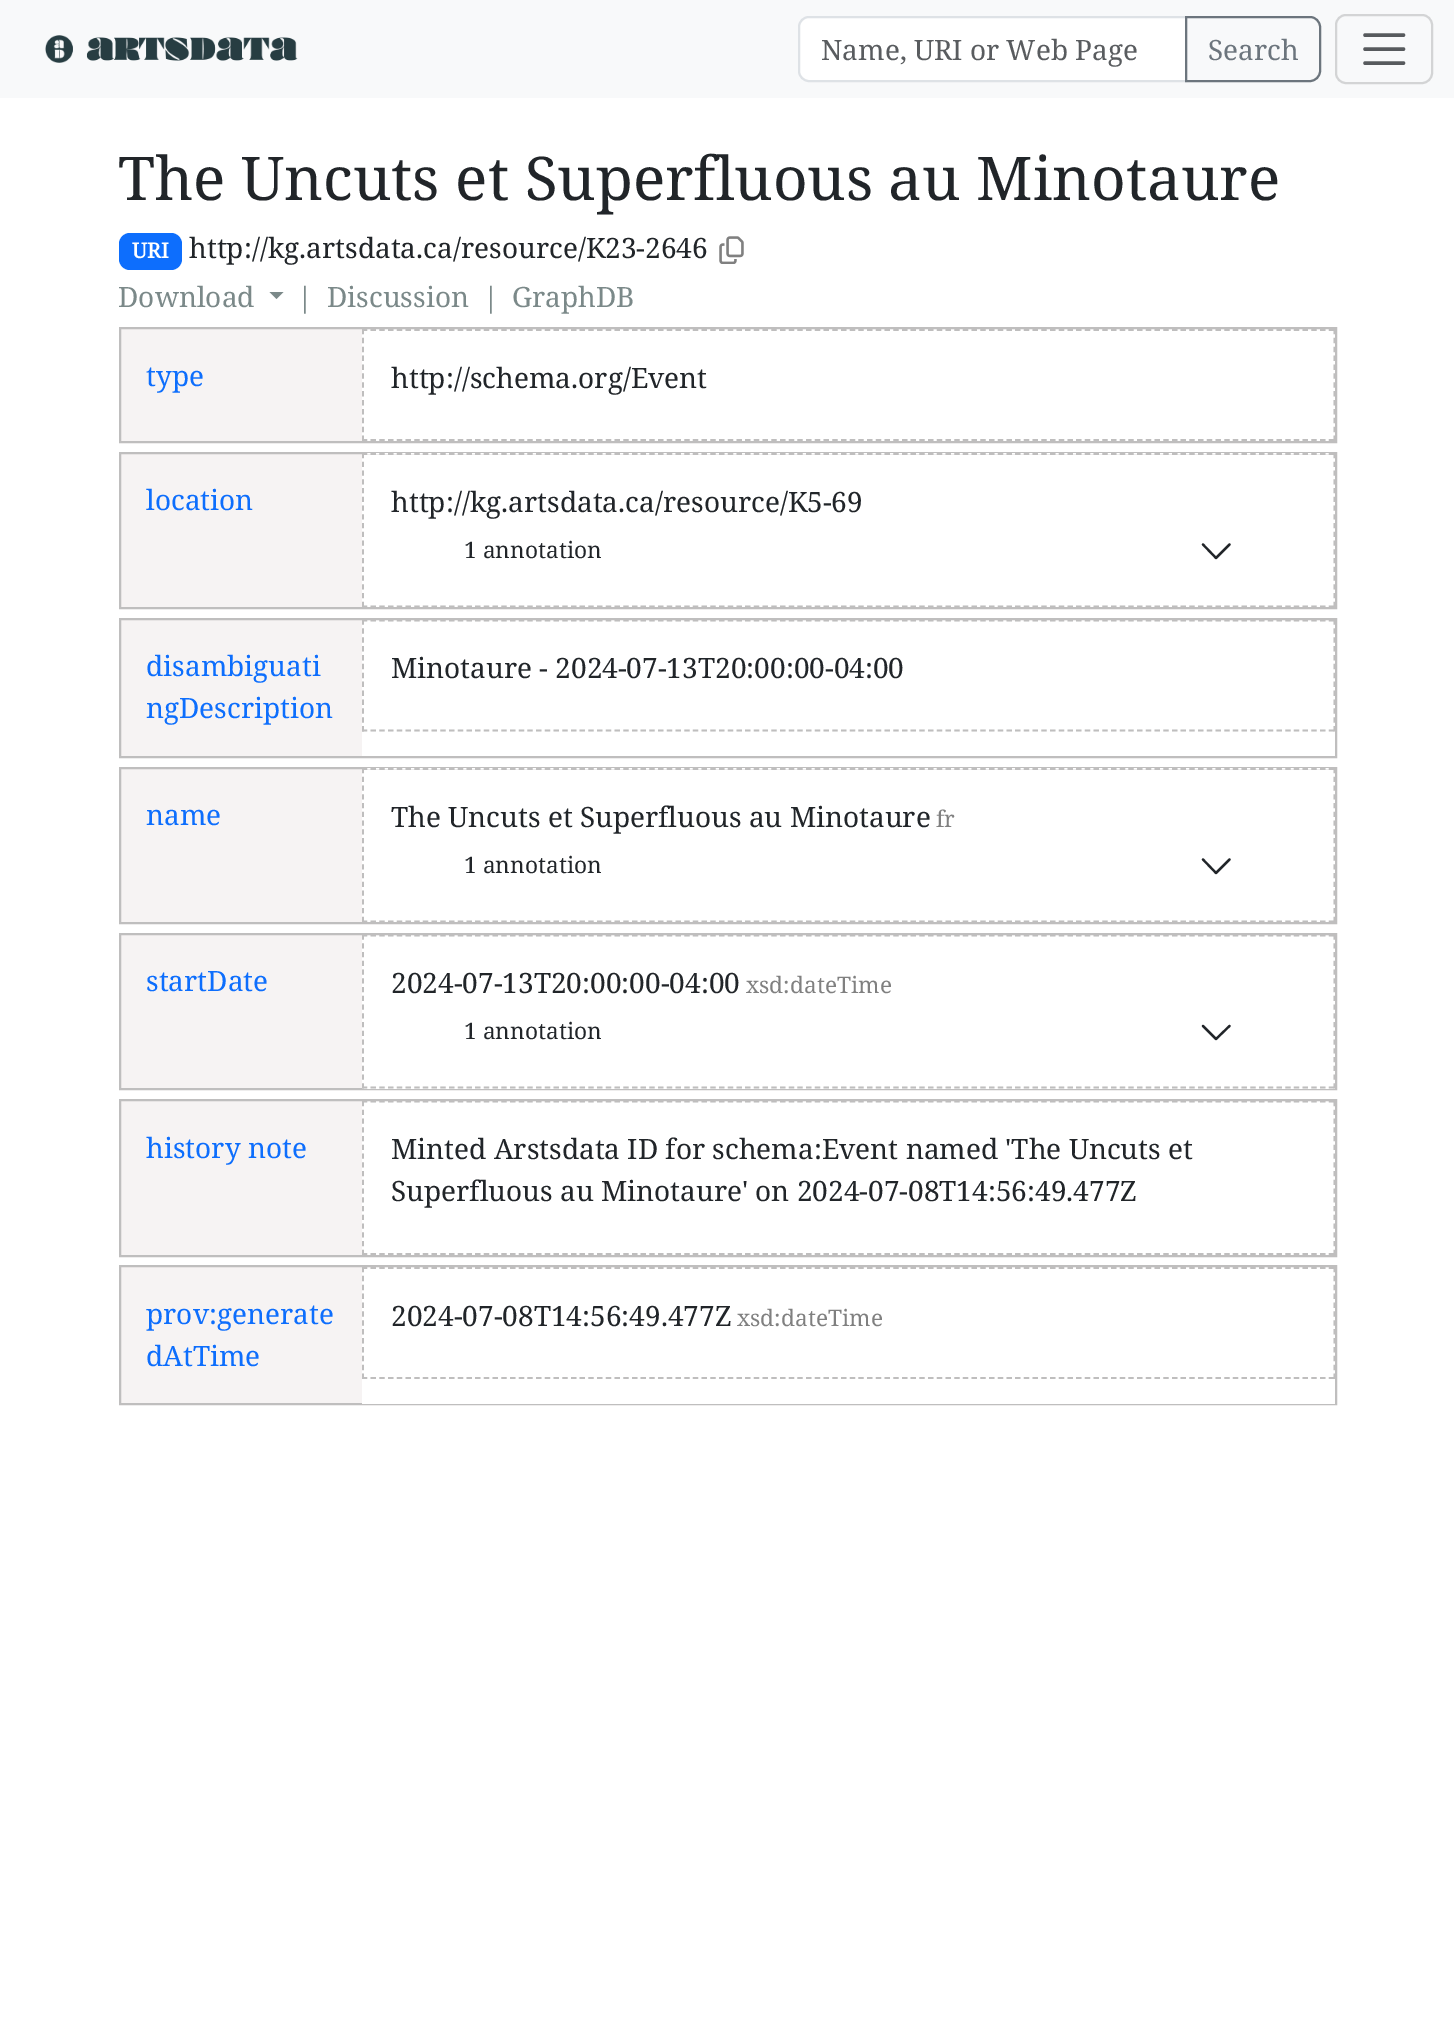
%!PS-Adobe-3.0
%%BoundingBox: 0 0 1454 2026
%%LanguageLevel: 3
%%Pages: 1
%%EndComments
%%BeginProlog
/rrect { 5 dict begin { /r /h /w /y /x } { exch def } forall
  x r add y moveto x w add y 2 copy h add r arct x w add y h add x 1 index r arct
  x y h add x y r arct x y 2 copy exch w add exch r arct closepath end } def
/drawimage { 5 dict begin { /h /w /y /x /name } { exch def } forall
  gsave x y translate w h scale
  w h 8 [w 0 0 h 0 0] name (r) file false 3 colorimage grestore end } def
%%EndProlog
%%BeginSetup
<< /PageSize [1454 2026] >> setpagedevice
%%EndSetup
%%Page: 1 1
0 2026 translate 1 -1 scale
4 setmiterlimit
1 setgray
0 0 1454 2026 rectfill
0.973 0.976 0.98 setrgbcolor
0 0 1454 98 rectfill
(images/1.raw) 45 35 253 28 drawimage
1 setgray
newpath 809 17 moveto 1186 17 lineto 1186 81 lineto 809 81 lineto 803.5 81 799 76.5 799 71 curveto 799 27 lineto 799 21.5 803.5 17 809 17 curveto closepath gsave fill grestore
0.871 0.886 0.902 setrgbcolor
2 setlinewidth
stroke
0.424 0.459 0.49 setrgbcolor
newpath 1186 17 moveto 1310 17 lineto 1315.5 17 1320 21.5 1320 27 curveto 1320 71 lineto 1320 76.5 1315.5 81 1310 81 curveto 1186 81 lineto closepath stroke
0.827 0.831 0.835 setrgbcolor
1336 15 96 68 10 rrect stroke
0.341 0.353 0.365 setrgbcolor
3.5 setlinewidth
1 setlinecap
newpath 1365 35 moveto 1403.5 35 lineto 1365 49 moveto 1403.5 49 lineto 1365 63 moveto 1403.5 63 lineto stroke
0.051 0.431 0.992 setrgbcolor
119 233 63 37 11 rrect fill
(images/2.raw) 719 236 25 28 drawimage
0.482 0.537 0.537 setrgbcolor
newpath 269.5 292 moveto 283.5 292 lineto 276.5 299 lineto closepath fill
0.965 0.953 0.953 setrgbcolor
121 329 241 112 rectfill
0.749 0.745 0.745 setrgbcolor
2 setlinewidth
0 setlinecap
120 328 1216 114 rectstroke
1.8 setlinewidth
[5.25 3.46] 0 setdash
newpath 362 330 moveto 1335 330 lineto stroke
gsave
362 329 973 112 rectclip
[5.25 3.64] 0 setdash
newpath 1334.5 329 moveto 1334.5 441 lineto stroke
grestore
newpath 362 440 moveto 1335 440 lineto stroke
[5.25 3.64] 0 setdash
newpath 363 329 moveto 363 441 lineto stroke
0.965 0.953 0.953 setrgbcolor
121 454 241 153 rectfill
0.749 0.745 0.745 setrgbcolor
2 setlinewidth
[] 0 setdash
120 453 1216 155 rectstroke
1 setgray
362 453 973 1 rectfill
0.749 0.745 0.745 setrgbcolor
1.8 setlinewidth
[5.25 3.46] 0 setdash
newpath 362 454 moveto 1335 454 lineto stroke
gsave
362 453 973 154 rectclip
[5.25 3.5] 0 setdash
newpath 1334.5 453 moveto 1334.5 607 lineto stroke
[5.25 3.46] 0 setdash
newpath 362 606.5 moveto 1335 606.5 lineto stroke
grestore
[5.25 3.5] 0 setdash
newpath 363 453 moveto 363 607 lineto stroke
0.129 0.145 0.161 setrgbcolor
2.2 setlinewidth
1 setlinecap
1 setlinejoin
[] 0 setdash
newpath 1203 544.5 moveto 1216 558 lineto 1229.5 544.5 lineto stroke
0.965 0.953 0.953 setrgbcolor
121 620 241 136 rectfill
0.749 0.745 0.745 setrgbcolor
2 setlinewidth
0 setlinecap
0 setlinejoin
120 619 1216 138 rectstroke
gsave
362 620 973 136 rectclip
1.8 setlinewidth
[5.25 3.46] 0 setdash
newpath 362 620.5 moveto 1335 620.5 lineto stroke
[5.25 3.64] 0 setdash
newpath 1334.5 619.5 moveto 1334.5 731.5 lineto stroke
grestore
1.8 setlinewidth
[5.25 3.46] 0 setdash
newpath 362 730.5 moveto 1335 730.5 lineto stroke
[5.25 3.64] 0 setdash
newpath 363 619.5 moveto 363 731.5 lineto stroke
0.965 0.953 0.953 setrgbcolor
121 769 241 153 rectfill
0.749 0.745 0.745 setrgbcolor
2 setlinewidth
[] 0 setdash
120 768 1216 155 rectstroke
1 setgray
362 768 973 1 rectfill
0.749 0.745 0.745 setrgbcolor
1.8 setlinewidth
[5.25 3.46] 0 setdash
newpath 362 769 moveto 1335 769 lineto stroke
gsave
362 768 973 154 rectclip
[5.25 3.5] 0 setdash
newpath 1334.5 768 moveto 1334.5 922 lineto stroke
[5.25 3.46] 0 setdash
newpath 362 921.5 moveto 1335 921.5 lineto stroke
grestore
[5.25 3.5] 0 setdash
newpath 363 768 moveto 363 922 lineto stroke
0.129 0.145 0.161 setrgbcolor
2.2 setlinewidth
1 setlinecap
1 setlinejoin
[] 0 setdash
newpath 1203 859.5 moveto 1216 873 lineto 1229.5 859.5 lineto stroke
0.965 0.953 0.953 setrgbcolor
121 935 241 153 rectfill
0.749 0.745 0.745 setrgbcolor
2 setlinewidth
0 setlinecap
0 setlinejoin
120 934 1216 155 rectstroke
1 setgray
362 1088 973 1 rectfill
gsave
362 935 973 154 rectclip
0.749 0.745 0.745 setrgbcolor
1.8 setlinewidth
[5.25 3.46] 0 setdash
newpath 362 935.5 moveto 1335 935.5 lineto stroke
[5.25 3.5] 0 setdash
newpath 1334.5 934.5 moveto 1334.5 1088.5 lineto stroke
grestore
0.749 0.745 0.745 setrgbcolor
1.8 setlinewidth
[5.25 3.46] 0 setdash
newpath 362 1087.5 moveto 1335 1087.5 lineto stroke
[5.25 3.5] 0 setdash
newpath 363 934.5 moveto 363 1088.5 lineto stroke
0.129 0.145 0.161 setrgbcolor
2.2 setlinewidth
1 setlinecap
1 setlinejoin
[] 0 setdash
newpath 1203 1026 moveto 1216 1039 lineto 1229.5 1026 lineto stroke
0.965 0.953 0.953 setrgbcolor
121 1101 241 154 rectfill
0.749 0.745 0.745 setrgbcolor
2 setlinewidth
0 setlinecap
0 setlinejoin
120 1100 1216 156 rectstroke
gsave
362 1101 973 154 rectclip
1.8 setlinewidth
[5.25 3.46] 0 setdash
newpath 362 1101.5 moveto 1335 1101.5 lineto stroke
[5.25 3.5] 0 setdash
newpath 1334.5 1101 moveto 1334.5 1255 lineto stroke
grestore
1.8 setlinewidth
[5.25 3.46] 0 setdash
newpath 362 1254 moveto 1335 1254 lineto stroke
[5.25 3.5] 0 setdash
newpath 363 1101 moveto 363 1255 lineto stroke
0.965 0.953 0.953 setrgbcolor
121 1267 241 136 rectfill
0.749 0.745 0.745 setrgbcolor
2 setlinewidth
[] 0 setdash
120 1266 1216 138 rectstroke
1 setgray
362 1403 973 1 rectfill
0.749 0.745 0.745 setrgbcolor
1.8 setlinewidth
[5.25 3.46] 0 setdash
newpath 362 1268 moveto 1335 1268 lineto stroke
gsave
362 1267 973 137 rectclip
[5.25 3.64] 0 setdash
newpath 1334.5 1267 moveto 1334.5 1379 lineto stroke
grestore
newpath 362 1378 moveto 1335 1378 lineto stroke
[5.25 3.64] 0 setdash
newpath 363 1267 moveto 363 1379 lineto stroke
/NotoSerif-Regular [28 0 0 -28 0 0] selectfont
0.349 0.361 0.373 setrgbcolor
821 60 moveto (Name, URI or Web Page) show
0.424 0.459 0.49 setrgbcolor
1208 60 moveto (Search) show
/NotoSerif-Regular [60.3 0 0 -60.3 0 0] selectfont
0.129 0.145 0.161 setrgbcolor
118 200 moveto (The Uncuts et Superfluous au Minotaure) show
/NotoSerif-Bold [21 0 0 -21 0 0] selectfont
1 setgray
132 258 moveto (URI) show
/NotoSerif-Regular [28 0 0 -28 0 0] selectfont
0.129 0.145 0.161 setrgbcolor
189 258 moveto (http://kg.artsdata.ca/resource/K23-2646) show
0.482 0.537 0.537 setrgbcolor
118 307 moveto (Download) show
297 307 moveto (|) show
327 307 moveto (Discussion) show
483 307 moveto (|) show
512 307 moveto (GraphDB) show
0.051 0.431 0.992 setrgbcolor
146 386 moveto (type) show
0.129 0.145 0.161 setrgbcolor
391 388 moveto (http://schema.org/Event) show
0.051 0.431 0.992 setrgbcolor
146 510 moveto (location) show
0.129 0.145 0.161 setrgbcolor
391 512 moveto (http://kg.artsdata.ca/resource/K5-69) show
/NotoSerif-Regular [22.75 0 0 -22.75 0 0] selectfont
464 558 moveto (1 annotation) show
/NotoSerif-Regular [28 0 0 -28 0 0] selectfont
0.051 0.431 0.992 setrgbcolor
146 676 moveto (disambiguati) show
146 718 moveto (ngDescription) show
0.129 0.145 0.161 setrgbcolor
391 678 moveto (Minotaure - 2024-07-13T20:00:00-04:00) show
0.051 0.431 0.992 setrgbcolor
146 825 moveto (name) show
0.129 0.145 0.161 setrgbcolor
391 827 moveto (The Uncuts et Superfluous au Minotaure) show
/NotoSerif-Regular [22.75 0 0 -22.75 0 0] selectfont
0.502 setgray
936 827 moveto (fr) show
0.129 0.145 0.161 setrgbcolor
464 873 moveto (1 annotation) show
/NotoSerif-Regular [28 0 0 -28 0 0] selectfont
0.051 0.431 0.992 setrgbcolor
146 991 moveto (startDate) show
0.129 0.145 0.161 setrgbcolor
391 993 moveto (2024-07-13T20:00:00-04:00) show
/NotoSerif-Regular [22.75 0 0 -22.75 0 0] selectfont
0.502 setgray
746 993 moveto (xsd:dateTime) show
0.129 0.145 0.161 setrgbcolor
464 1039 moveto (1 annotation) show
/NotoSerif-Regular [28 0 0 -28 0 0] selectfont
0.051 0.431 0.992 setrgbcolor
146 1158 moveto (history note) show
0.129 0.145 0.161 setrgbcolor
391 1159 moveto (Minted Arstsdata ID for schema:Event named 'The Uncuts et) show
391 1201 moveto (Superfluous au Minotaure' on 2024-07-08T14:56:49.477Z) show
0.051 0.431 0.992 setrgbcolor
146 1324 moveto (prov:generate) show
146 1366 moveto (dAtTime) show
0.129 0.145 0.161 setrgbcolor
391 1326 moveto (2024-07-08T14:56:49.477Z) show
/NotoSerif-Regular [22.75 0 0 -22.75 0 0] selectfont
0.502 setgray
737 1326 moveto (xsd:dateTime) show
showpage
%%EOF
